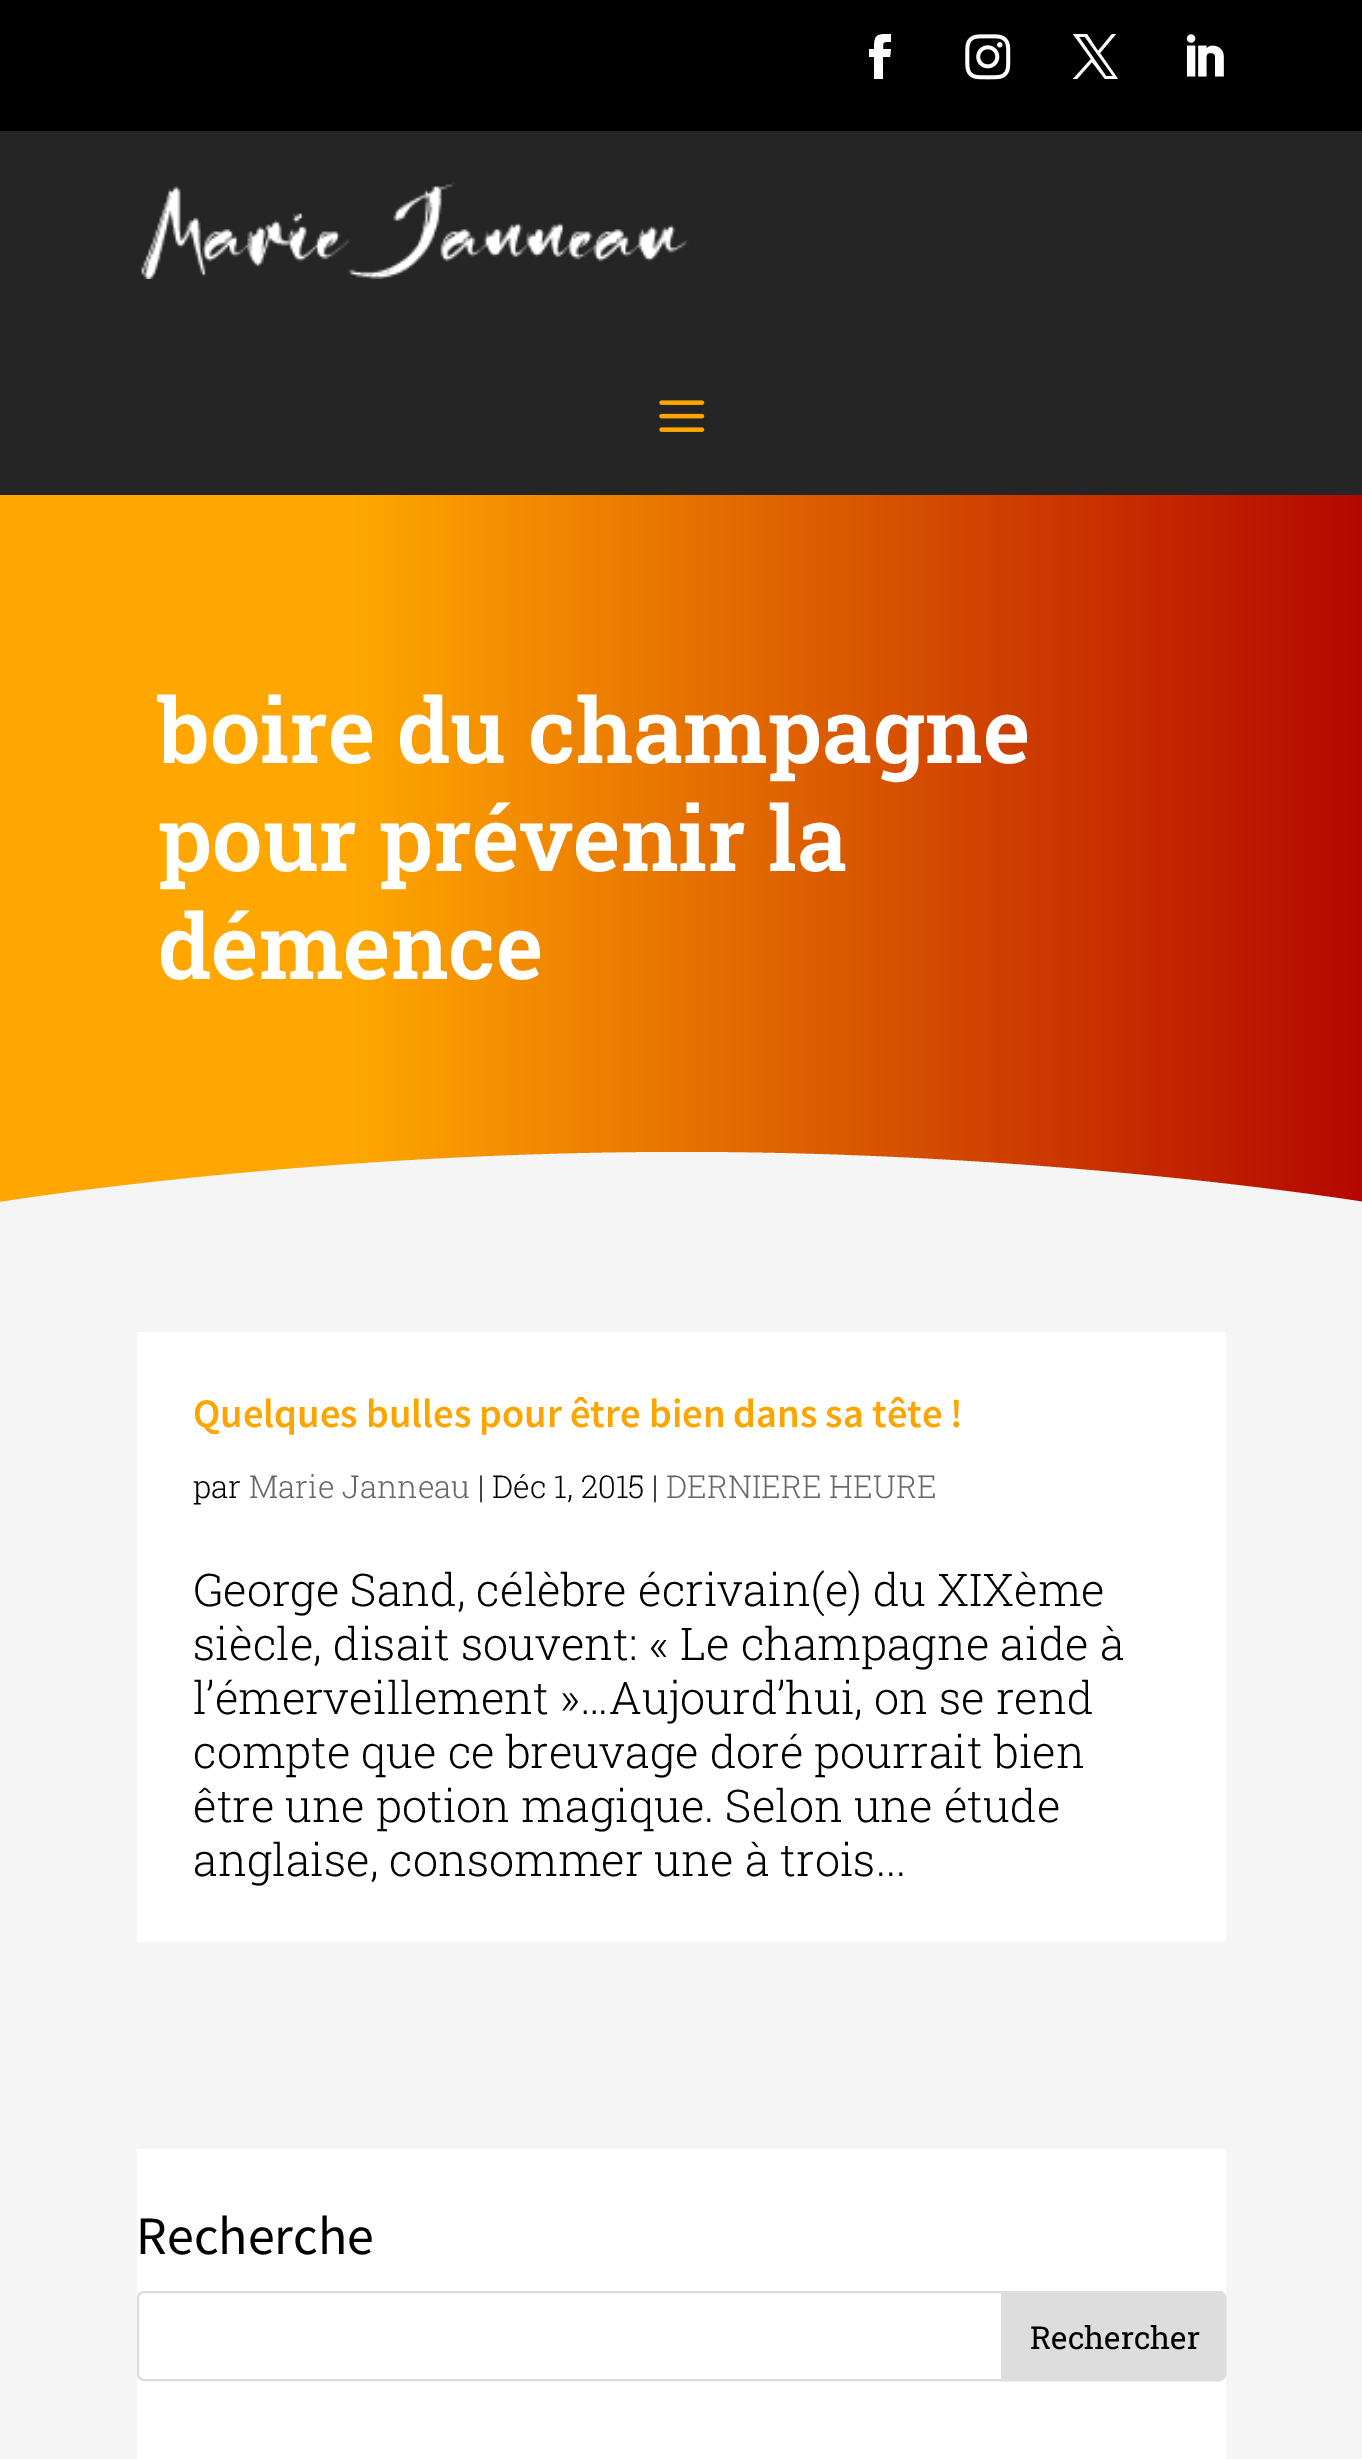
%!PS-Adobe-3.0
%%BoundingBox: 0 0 1362 2459
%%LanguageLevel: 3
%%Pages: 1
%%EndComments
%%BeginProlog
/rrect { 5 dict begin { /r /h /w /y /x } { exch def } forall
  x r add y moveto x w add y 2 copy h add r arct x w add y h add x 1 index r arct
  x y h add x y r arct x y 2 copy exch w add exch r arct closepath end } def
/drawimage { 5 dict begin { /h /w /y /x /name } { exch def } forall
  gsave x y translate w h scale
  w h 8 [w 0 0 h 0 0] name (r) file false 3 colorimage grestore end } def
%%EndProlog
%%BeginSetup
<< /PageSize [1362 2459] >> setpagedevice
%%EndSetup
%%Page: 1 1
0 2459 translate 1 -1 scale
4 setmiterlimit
0.961 setgray
0 0 1362 2459 rectfill
0 setgray
0 0 1362 131 rectfill
1 setgray
newpath 874 79 moveto 883 79 lineto 883 57 lineto 890 57 lineto 891 49 lineto 883 49 lineto 883 41 883 42 891 42 curveto 891 34 lineto 877 34 874 34 874 49 curveto 869 49 lineto 869 57 lineto 874 57 lineto closepath fill
(images/1.raw) 965 34 46 46 drawimage
newpath 1073 34 moveto 1091 59 lineto 1073 79 lineto 1077 79 lineto 1092 62 lineto 1105 79 lineto 1118 79 lineto 1100 53 lineto 1116 34 lineto 1112 34 lineto 1098 51 lineto 1087 34 lineto closepath 1079 37 moveto 1085 37 lineto 1113 76 lineto 1106 76 lineto closepath fill
(images/2.raw) 1186 34 38 43 drawimage
0.145 setgray
0 131 1362 364 rectfill
(images/3.raw) 141 182 548 97 drawimage
(images/4.raw) 659 400 46 32 drawimage
gsave newpath 0 495 moveto 1362 495 lineto 1362 1202 lineto 0 1202 lineto closepath clip newpath
<< /ShadingType 2 /ColorSpace /DeviceRGB /Coords [0 848 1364 848] /Extend [true true] /Function << /FunctionType 3 /Domain [0 1] /Functions [<< /FunctionType 2 /Domain [0 1] /C0 [1 0.655 0] /C1 [1 0.655 0] /N 1 >> << /FunctionType 2 /Domain [0 1] /C0 [1 0.655 0] /C1 [0.71 0.027 0] /N 1 >>] /Bounds [0.26] /Encode [0 1 0 1] >> >> shfill grestore
0.961 setgray
newpath 682 1152 moveto 1058 1152 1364 1202 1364 1202 curveto 0 1202 lineto 0 1202 305 1152 682 1152 curveto closepath fill
1 setgray
137 1332 1089 610 rectfill
137 2149 1089 310 rectfill
0.867 setgray
2 setlinewidth
138 2292 1087 88 6 rrect stroke
newpath 1002 2292 moveto 1219 2292 lineto 1222.5 2292 1225 2294.5 1225 2298 curveto 1225 2374 lineto 1225 2377.5 1222.5 2380 1219 2380 curveto 1002 2380 lineto closepath gsave fill grestore
stroke
/RobotoSlab-SemiBold [90 0 0 -90 0 0] selectfont
1 setgray
158 763 moveto (boire du champagne) show
158 871 moveto (pour prévenir la) show
158 979 moveto (démence) show
/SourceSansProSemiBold-SemiBold [40.5 0 0 -40.5 0 0] selectfont
0.984 0.651 0 setrgbcolor
193 1427 moveto (Quelques bulles pour être bien dans sa tête !) show
/RobotoSlab-Light [31.5 0 0 -31.5 0 0] selectfont
0 setgray
193 1498 moveto (par) show
0.4 setgray
249 1498 moveto (Marie Janneau) show
0 setgray
478 1498 moveto (| Déc 1, 2015 |) show
0.4 setgray
666 1498 moveto (DERNIERE HEURE) show
/RobotoSlab-Light [45 0 0 -45 0 0] selectfont
0 setgray
193 1606 moveto (George Sand, célèbre écrivain\(e\) du XIXème) show
193 1660 moveto (siècle, disait souvent: « Le champagne aide à) show
193 1714 moveto (l’émerveillement »…Aujourd’hui, on se rend) show
193 1768 moveto (compte que ce breuvage doré pourrait bien) show
193 1822 moveto (être une potion magique. Selon une étude) show
193 1876 moveto (anglaise, consommer une à trois...) show
/SourceSansPro-Regular [54 0 0 -54 0 0] selectfont
136 2254 moveto (Recherche) show
/RobotoSlab-Regular [31.5 0 0 -31.5 0 0] selectfont
1030 2349 moveto (Rechercher) show
showpage
%%EOF
